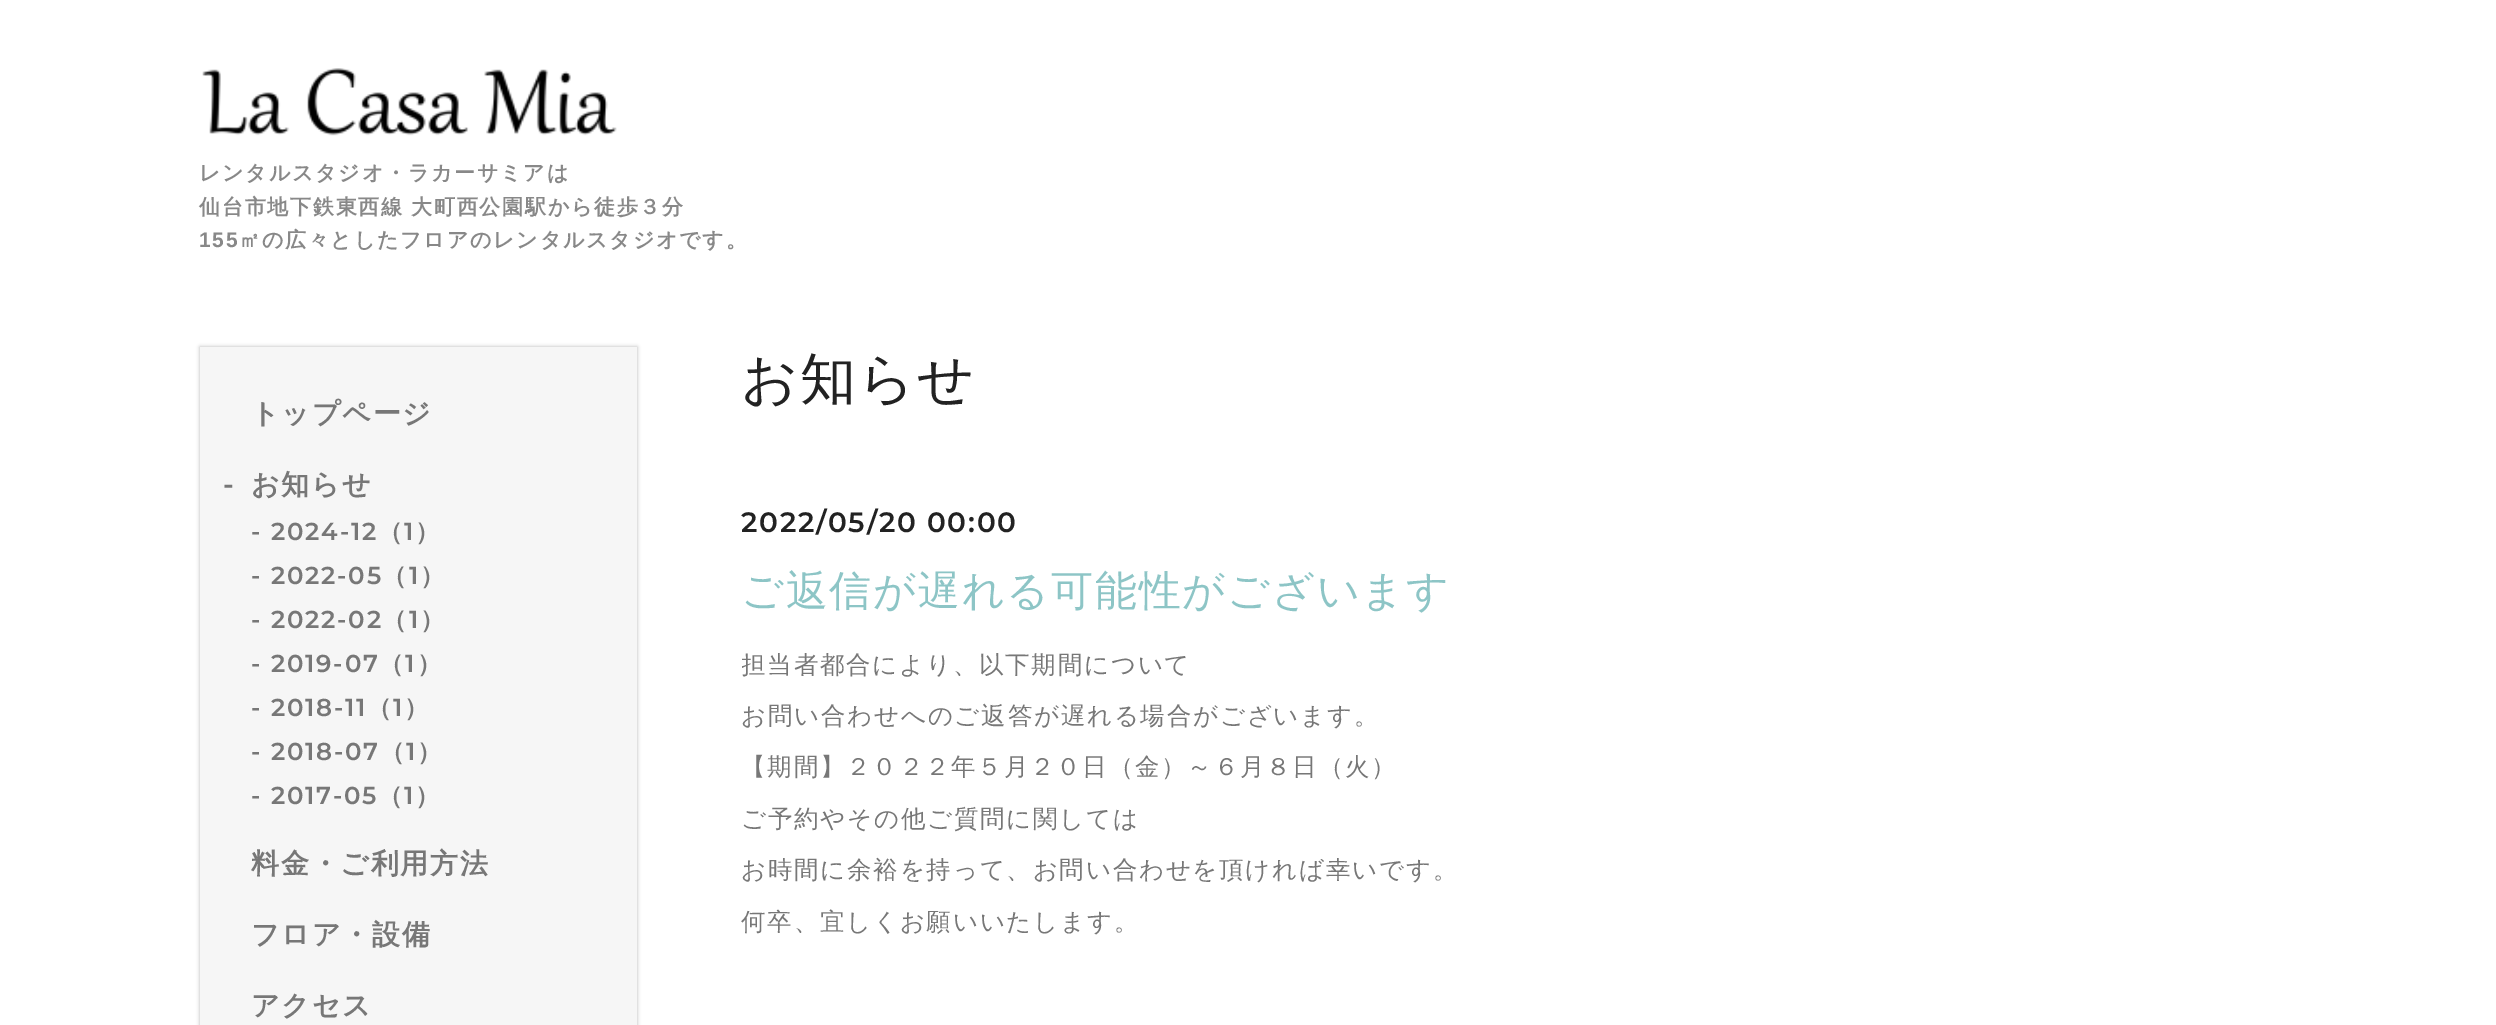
%!PS-Adobe-3.0
%%BoundingBox: 0 0 2496 1025
%%LanguageLevel: 3
%%Pages: 1
%%EndComments
%%BeginProlog
/setalpha { dup .setfillconstantalpha .setstrokeconstantalpha } def
/rrect { 5 dict begin { /r /h /w /y /x } { exch def } forall
  x r add y moveto x w add y 2 copy h add r arct x w add y h add x 1 index r arct
  x y h add x y r arct x y 2 copy exch w add exch r arct closepath end } def
/softshadow { 12 dict begin { /a /b /q /h /w /y /x } { exch def } forall gsave /was 0 def
  9 -2 -9 { dup b mul 4 div /e exch def 1 sub .425 mul 2.718 exch exp 1 add a .99 .min exch div /now exch def
    1 1 now sub 1 was sub div sub setalpha /was now def
    w h .min e 2 mul add 0 gt { x e sub y e sub w e 2 mul add h e 2 mul add
      q e add b .6 mul add w h .min 2 div e add .min 0 .max rrect fill } if } for grestore end } def
/drawimage { 5 dict begin { /h /w /y /x /name } { exch def } forall
  gsave x y translate w h scale
  w h 8 [w 0 0 h 0 0] name (r) file false 3 colorimage grestore end } def
%%EndProlog
%%BeginSetup
<< /PageSize [2496 1025] /PageUsesTransparency true >> setpagedevice
%%EndSetup
%%Page: 1 1
0 .pushpdf14devicefilter
0 1025 translate 1 -1 scale
4 setmiterlimit
1 setgray
0 0 2496 1025 rectfill
(images/1.raw) 202 68 415 68 drawimage
0 setgray
200 347 437 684 0 2 0.3 softshadow
0.965 setgray
200 347 437 678 rectfill
/WenQuanYiZenHei-Bold [21 0 0 -21 0 0] selectfont
0.533 setgray
199 180 moveto 1.75 0 (レンタルスタジオ・ラカーサミアは) ashow
199 214 moveto 1.75 0 (仙台市地下鉄東西線) ashow
411 214 moveto 1.75 0 (大町西公園駅から徒歩３分) ashow
/LiberationSans-Bold [21 0 0 -21 0 0] selectfont
199 247 moveto 1.75 0 (155) ashow
/WenQuanYiZenHei-Bold [21 0 0 -21 0 0] selectfont
239 247 moveto 1.75 0 (㎡の広々としたフロアのレンタルスタジオです。) ashow
/WenQuanYiZenHei-Bold [28 0 0 -28 0 0] selectfont
0.467 setgray
251 423 moveto 1.75 0 (トップページ) ashow
/Montserrat-SemiBold [28 0 0 -28 0 0] selectfont
223 494 moveto 1.75 0 (-) ashow
/WenQuanYiZenHei-Bold [28 0 0 -28 0 0] selectfont
251 494 moveto 1.75 0 (お知らせ) ashow
/Montserrat-SemiBold [24.5 0 0 -24.5 0 0] selectfont
251 540 moveto 1.75 0 (-) ashow
271 540 moveto 1.75 0 (2024-12) ashow
/WenQuanYiZenHei-Bold [24.5 0 0 -24.5 0 0] selectfont
378 540 moveto 1.75 0 (（) ashow
/Montserrat-SemiBold [24.5 0 0 -24.5 0 0] selectfont
404 540 moveto 1.75 0 (1) ashow
/WenQuanYiZenHei-Bold [24.5 0 0 -24.5 0 0] selectfont
415 540 moveto 1.75 0 (）) ashow
/Montserrat-SemiBold [24.5 0 0 -24.5 0 0] selectfont
251 584 moveto 1.75 0 (-) ashow
271 584 moveto 1.75 0 (2022-05) ashow
/WenQuanYiZenHei-Bold [24.5 0 0 -24.5 0 0] selectfont
382 584 moveto 1.75 0 (（) ashow
/Montserrat-SemiBold [24.5 0 0 -24.5 0 0] selectfont
409 584 moveto 1.75 0 (1) ashow
/WenQuanYiZenHei-Bold [24.5 0 0 -24.5 0 0] selectfont
420 584 moveto 1.75 0 (）) ashow
/Montserrat-SemiBold [24.5 0 0 -24.5 0 0] selectfont
251 628 moveto 1.75 0 (-) ashow
271 628 moveto 1.75 0 (2022-02) ashow
/WenQuanYiZenHei-Bold [24.5 0 0 -24.5 0 0] selectfont
382 628 moveto 1.75 0 (（) ashow
/Montserrat-SemiBold [24.5 0 0 -24.5 0 0] selectfont
409 628 moveto 1.75 0 (1) ashow
/WenQuanYiZenHei-Bold [24.5 0 0 -24.5 0 0] selectfont
420 628 moveto 1.75 0 (）) ashow
/Montserrat-SemiBold [24.5 0 0 -24.5 0 0] selectfont
251 672 moveto 1.75 0 (-) ashow
271 672 moveto 1.75 0 (2019-07) ashow
/WenQuanYiZenHei-Bold [24.5 0 0 -24.5 0 0] selectfont
379 672 moveto 1.75 0 (（) ashow
/Montserrat-SemiBold [24.5 0 0 -24.5 0 0] selectfont
405 672 moveto 1.75 0 (1) ashow
/WenQuanYiZenHei-Bold [24.5 0 0 -24.5 0 0] selectfont
417 672 moveto 1.75 0 (）) ashow
/Montserrat-SemiBold [24.5 0 0 -24.5 0 0] selectfont
251 716 moveto 1.75 0 (-) ashow
271 716 moveto 1.75 0 (2018-11) ashow
/WenQuanYiZenHei-Bold [24.5 0 0 -24.5 0 0] selectfont
367 716 moveto 1.75 0 (（) ashow
/Montserrat-SemiBold [24.5 0 0 -24.5 0 0] selectfont
393 716 moveto 1.75 0 (1) ashow
/WenQuanYiZenHei-Bold [24.5 0 0 -24.5 0 0] selectfont
404 716 moveto 1.75 0 (）) ashow
/Montserrat-SemiBold [24.5 0 0 -24.5 0 0] selectfont
251 760 moveto 1.75 0 (-) ashow
271 760 moveto 1.75 0 (2018-07) ashow
/WenQuanYiZenHei-Bold [24.5 0 0 -24.5 0 0] selectfont
380 760 moveto 1.75 0 (（) ashow
/Montserrat-SemiBold [24.5 0 0 -24.5 0 0] selectfont
406 760 moveto 1.75 0 (1) ashow
/WenQuanYiZenHei-Bold [24.5 0 0 -24.5 0 0] selectfont
417 760 moveto 1.75 0 (）) ashow
/Montserrat-SemiBold [24.5 0 0 -24.5 0 0] selectfont
251 804 moveto 1.75 0 (-) ashow
271 804 moveto 1.75 0 (2017-05) ashow
/WenQuanYiZenHei-Bold [24.5 0 0 -24.5 0 0] selectfont
378 804 moveto 1.75 0 (（) ashow
/Montserrat-SemiBold [24.5 0 0 -24.5 0 0] selectfont
404 804 moveto 1.75 0 (1) ashow
/WenQuanYiZenHei-Bold [24.5 0 0 -24.5 0 0] selectfont
415 804 moveto 1.75 0 (）) ashow
/WenQuanYiZenHei-Bold [28 0 0 -28 0 0] selectfont
251 873 moveto 1.75 0 (料金・ご利用方法) ashow
251 944 moveto 1.75 0 (フロア・設備) ashow
251 1015 moveto 1.75 0 (アクセス) ashow
/WenQuanYiZenHei-Medium [56 0 0 -56 0 0] selectfont
0.133 setgray
741 398 moveto 1.75 0 (お知らせ) ashow
/Montserrat-SemiBold [28 0 0 -28 0 0] selectfont
741 532 moveto 1.75 0 (2022/05/20 00:00) ashow
/WenQuanYiZenHei-Medium [42 0 0 -42 0 0] selectfont
0.553 0.773 0.776 setrgbcolor
741 605 moveto 1.75 0 (ご返信が遅れる可能性がございます) ashow
gsave
742 644 1558 298 rectclip
/WenQuanYiZenHei-Medium [24.5 0 0 -24.5 0 0] selectfont
0.467 setgray
741 673 moveto 1.75 0 (担当者都合により、以下期間について) ashow
grestore
/WenQuanYiZenHei-Medium [24.5 0 0 -24.5 0 0] selectfont
0.467 setgray
741 724 moveto 1.75 0 (お問い合わせへのご返答が遅れる場合がございます。) ashow
741 775 moveto 1.75 0 (【期間】２０２２年５月２０日（金）～６月８日（火）) ashow
741 827 moveto 1.75 0 (ご予約やその他ご質問に関しては) ashow
741 878 moveto 1.75 0 (お時間に余裕を持って、お問い合わせを頂ければ幸いです。) ashow
741 930 moveto 1.75 0 (何卒、宜しくお願いいたします。) ashow
.poppdf14devicefilter showpage
%%EOF
